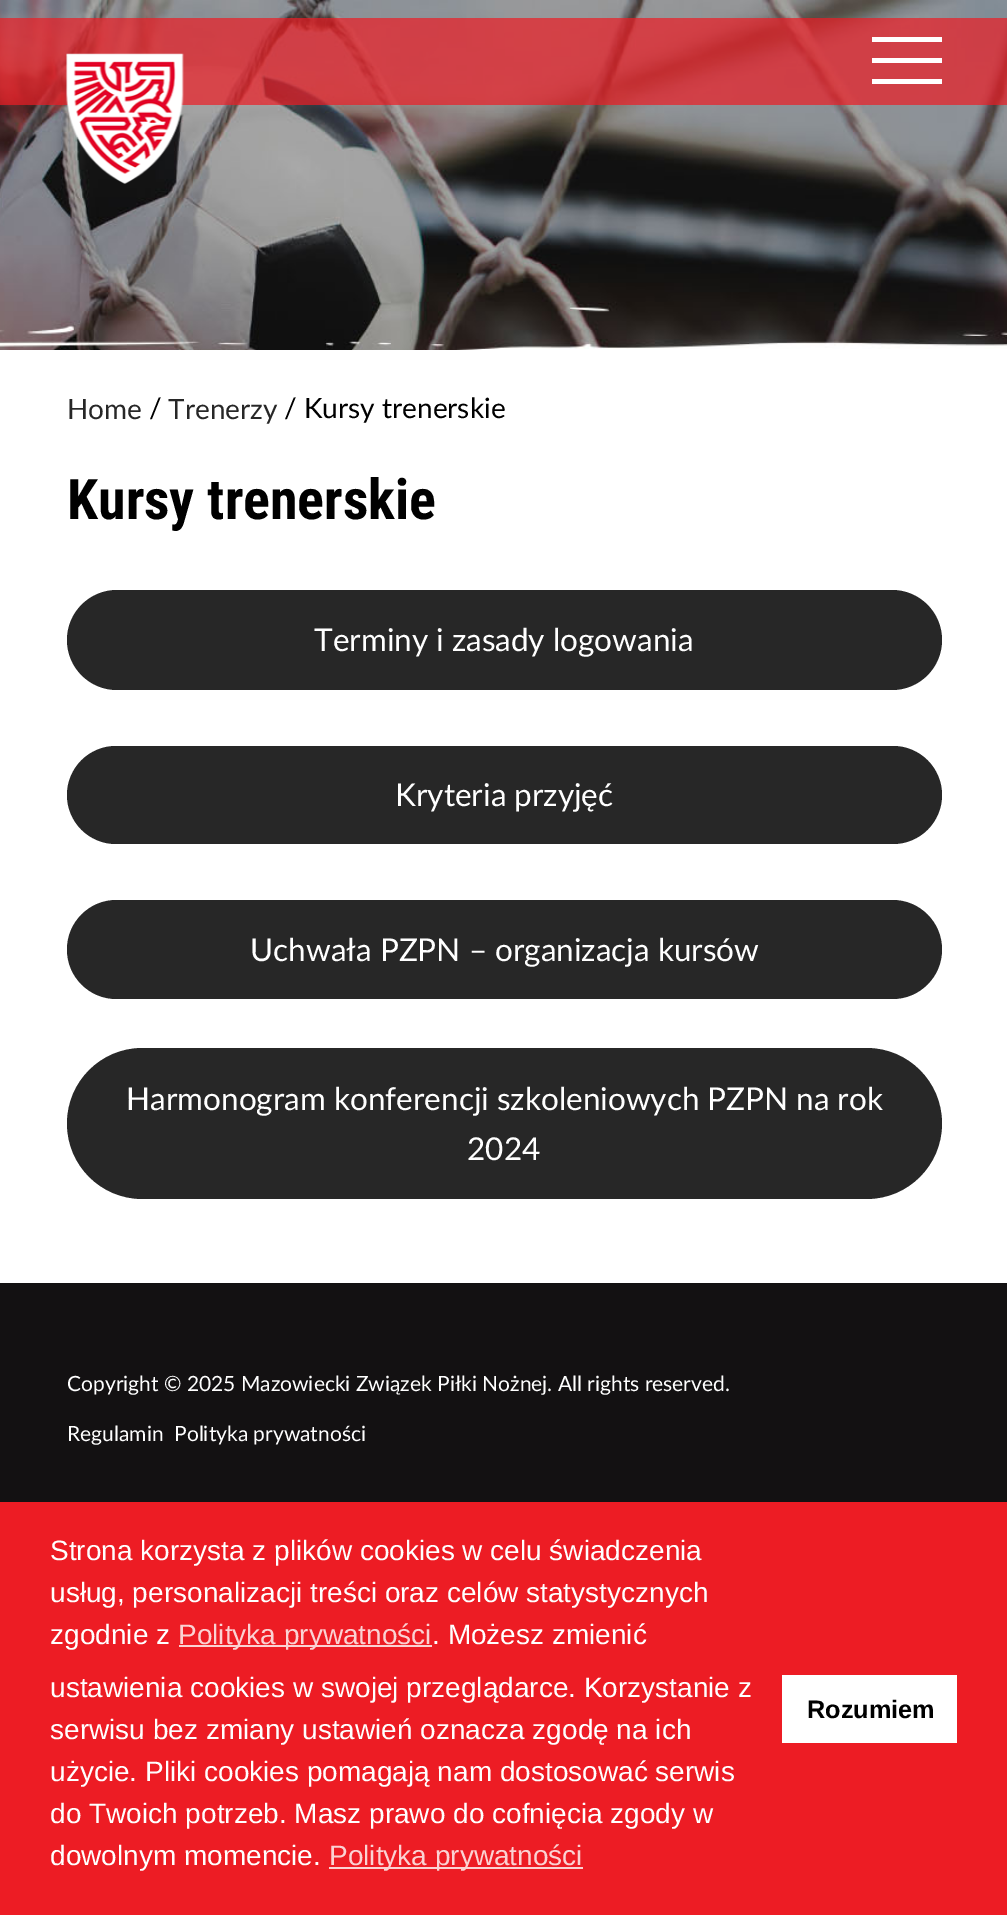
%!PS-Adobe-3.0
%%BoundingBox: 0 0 1007 1915
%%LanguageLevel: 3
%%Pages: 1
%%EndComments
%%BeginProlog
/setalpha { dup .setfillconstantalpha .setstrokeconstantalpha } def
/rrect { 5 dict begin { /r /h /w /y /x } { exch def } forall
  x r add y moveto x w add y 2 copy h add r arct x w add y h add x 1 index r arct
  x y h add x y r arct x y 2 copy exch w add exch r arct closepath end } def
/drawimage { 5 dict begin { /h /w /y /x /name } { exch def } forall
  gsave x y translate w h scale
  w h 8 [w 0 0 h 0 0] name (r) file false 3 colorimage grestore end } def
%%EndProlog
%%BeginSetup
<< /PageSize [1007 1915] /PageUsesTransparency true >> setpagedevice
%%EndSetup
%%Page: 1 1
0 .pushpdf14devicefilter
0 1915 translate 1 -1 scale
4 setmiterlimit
1 setgray
0 0 1007 1915 rectfill
(images/1.raw) 0 0 1007 350 drawimage
0.7 setalpha
0.929 0.11 0.141 setrgbcolor
0 18 1007 87 rectfill
1 setalpha
(images/2.raw) 66 53 118 131 drawimage
1 setgray
872 37 70 5 rectfill
872 58 70 5 rectfill
872 79 70 5 rectfill
0.153 setgray
67 590 875 100 50 rrect fill
67 746 875 98 49 rrect fill
67 900 875 99 49.5 rrect fill
67 1048 875 151 75.5 rrect fill
0.075 0.067 0.071 setrgbcolor
0 1283 1007 219 rectfill
0.929 0.11 0.141 setrgbcolor
0 1502 1007 413 rectfill
0.984 0.824 0.827 setrgbcolor
179 1645 253 2 rectfill
329 1867 254 2 rectfill
1 setgray
782 1675 175 68 rectfill
/Lato-Regular [28 0 0 -28 0 0] selectfont
0.153 setgray
67 419 moveto (Home) show
0 setgray
149 418 moveto (/) show
0.153 setgray
168 419 moveto (Trenerzy) show
0 setgray
284 418 moveto (/ Kursy trenerskie) show
/RobotoCondensed-Bold [56 0 0 -56 0 0] selectfont
67 519 moveto (Kursy trenerskie) show
/Lato-Regular [31.5 0 0 -31.5 0 0] selectfont
1 setgray
314 651 moveto (Terminy i zasady logowania) show
395 806 moveto (Kryteria przyjęć) show
250 961 moveto (Uchwała PZPN – organizacja kursów) show
126 1110 moveto (Harmonogram konferencji szkoleniowych PZPN na rok) show
467 1160 moveto (2024) show
/Lato-Regular [21 0 0 -21 0 0] selectfont
67 1391 moveto (Copyright © 2025 Mazowiecki Związek Piłki Nożnej. All rights reserved.) show
67 1441 moveto (Regulamin) show
174 1441 moveto (Polityka prywatności) show
/LiberationSans-Regular [28 0 0 -28 0 0] selectfont
50 1560 moveto (Strona korzysta z plików cookies w celu świadczenia) show
50 1602 moveto (usług, personalizacji treści oraz celów statystycznych) show
50 1644 moveto (zgodnie z) show
0.984 0.824 0.827 setrgbcolor
178 1644 moveto (Polityka prywatności) show
1 setgray
432 1644 moveto (. Możesz zmienić) show
50 1697 moveto (ustawienia cookies w swojej przeglądarce. Korzystanie z) show
50 1739 moveto (serwisu bez zmiany ustawień oznacza zgodę na ich) show
50 1781 moveto (użycie. Pliki cookies pomagają nam dostosować serwis) show
50 1823 moveto (do Twoich potrzeb. Masz prawo do cofnięcia zgody w) show
50 1865 moveto (dowolnym momencie.) show
0.984 0.824 0.827 setrgbcolor
329 1865 moveto (Polityka prywatności) show
/LiberationSans-Bold [25.25 0 0 -25.25 0 0] selectfont
0 setgray
807 1718 moveto (Rozumiem) show
.poppdf14devicefilter showpage
%%EOF
